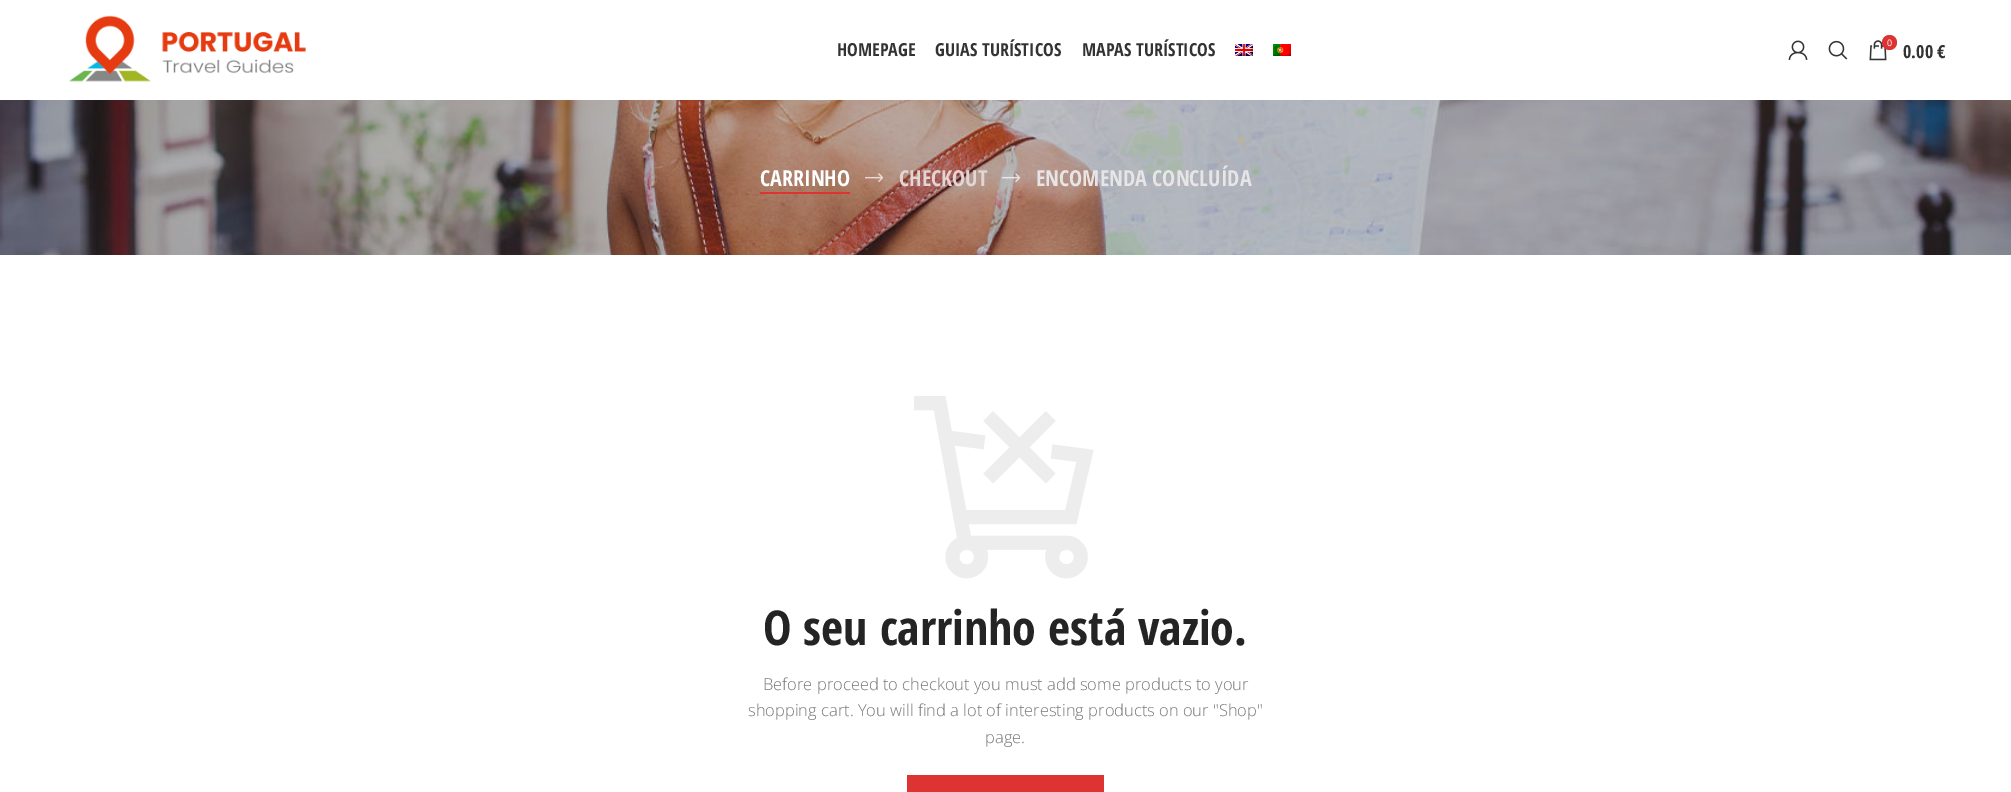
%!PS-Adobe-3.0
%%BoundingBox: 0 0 2011 792
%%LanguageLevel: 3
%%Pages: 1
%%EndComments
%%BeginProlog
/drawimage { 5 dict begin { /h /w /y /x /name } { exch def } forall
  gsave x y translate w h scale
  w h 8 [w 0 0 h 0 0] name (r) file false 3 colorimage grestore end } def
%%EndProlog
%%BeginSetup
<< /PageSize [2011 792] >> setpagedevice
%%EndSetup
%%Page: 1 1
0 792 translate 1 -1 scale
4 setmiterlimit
1 setgray
0 0 2011 792 rectfill
(images/1.raw) 69 15 237 67 drawimage
(images/2.raw) 1235 44 18 12 drawimage
(images/3.raw) 1273 44 18 12 drawimage
(images/4.raw) 1788 40 20 20 drawimage
(images/5.raw) 1828 40 20 20 drawimage
(images/6.raw) 1869 40 18 21 drawimage
0.867 0.2 0.2 setrgbcolor
newpath 1889.5 42.5 7.5 0 360 arc closepath fill
(images/7.raw) 0 100 2011 155 drawimage
760 192 90 2 rectfill
(images/8.raw) 865 173 19 10 drawimage
(images/9.raw) 1002 173 19 10 drawimage
(images/10.raw) 914 396 180 183 drawimage
907 775 197 17 rectfill
/OpenSansCondensed-Bold [18 0 0 -18 0 0] selectfont
0.2 setgray
837 56 moveto (HOMEPAGE) show
935 56 moveto (GUIAS TURÍSTICOS) show
1082 56 moveto (MAPAS TURÍSTICOS) show
/OpenSans-Regular [9 0 0 -9 0 0] selectfont
1 setgray
1887 46 moveto (0) show
/OpenSansCondensed-Bold [18 0 0 -18 0 0] selectfont
0.2 setgray
1903 58 moveto (0.00 €) show
/OpenSansCondensed-Bold [22 0 0 -22 0 0] selectfont
1 setgray
760 186 moveto (CARRINHO) show
0.894 0.831 0.824 setrgbcolor
899 186 moveto (CHECKOUT) show
0.906 0.898 0.902 setrgbcolor
1036 186 moveto (ENCOMENDA CONCLUÍDA) show
/OpenSansCondensed-Bold [48 0 0 -48 0 0] selectfont
0.141 setgray
763 645 moveto (O seu carrinho está vazio.) show
/OpenSans-Light [16.5 0 0 -16.5 0 0] selectfont
0.467 setgray
763 690 moveto (Before proceed to checkout you must add some products to your) show
748 716 moveto (shopping cart. You will find a lot of interesting products on our "Shop") show
985 743 moveto (page.) show
showpage
%%EOF
